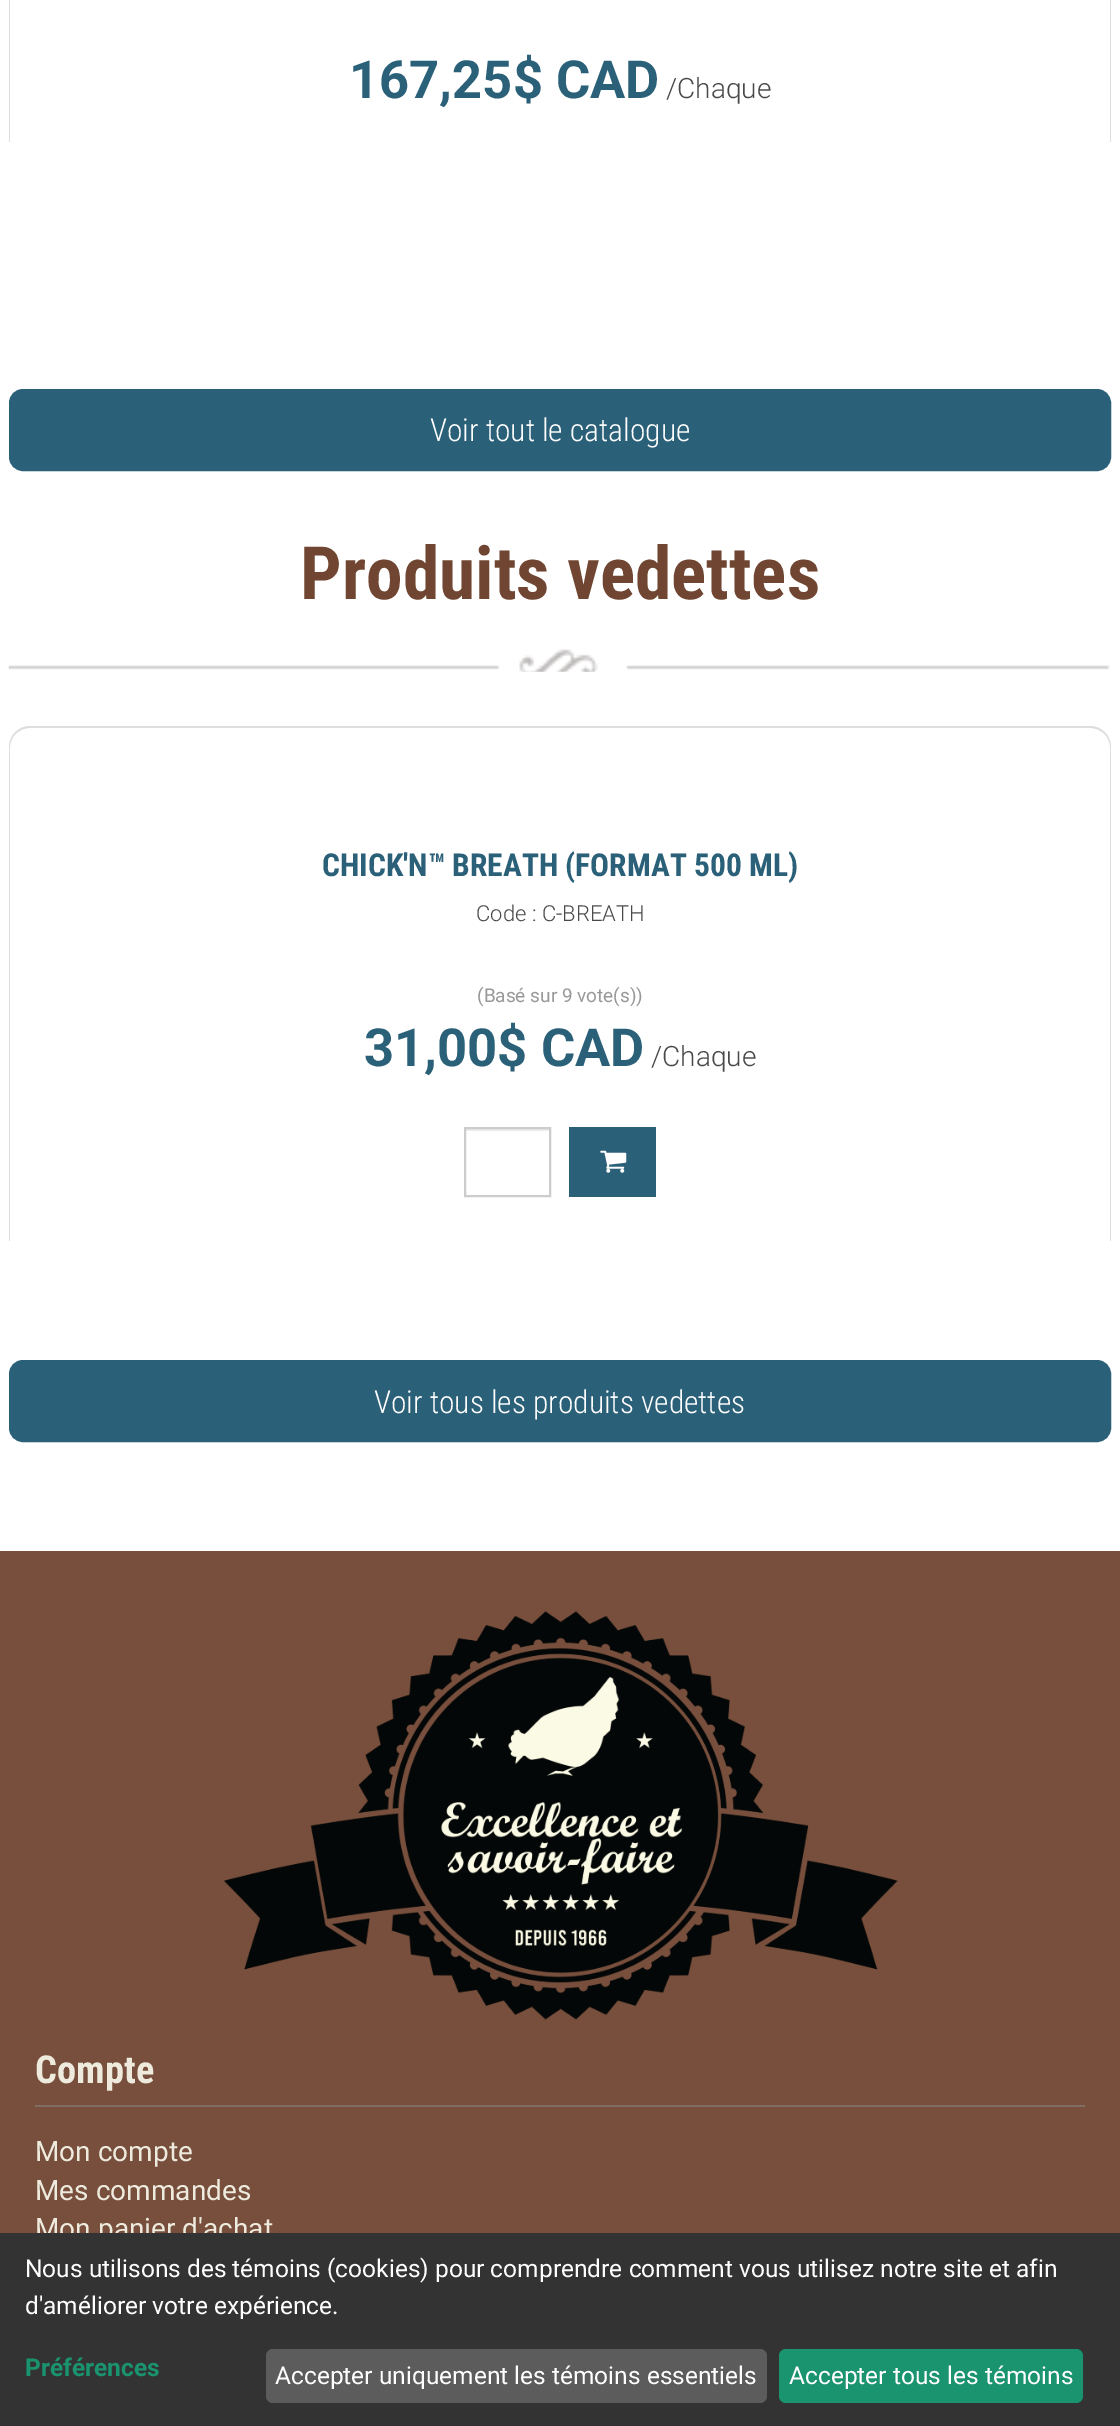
%!PS-Adobe-3.0
%%BoundingBox: 0 0 1120 2426
%%LanguageLevel: 3
%%Pages: 1
%%EndComments
%%BeginProlog
/rrect { 5 dict begin { /r /h /w /y /x } { exch def } forall
  x r add y moveto x w add y 2 copy h add r arct x w add y h add x 1 index r arct
  x y h add x y r arct x y 2 copy exch w add exch r arct closepath end } def
/drawimage { 5 dict begin { /h /w /y /x /name } { exch def } forall
  gsave x y translate w h scale
  w h 8 [w 0 0 h 0 0] name (r) file false 3 colorimage grestore end } def
%%EndProlog
%%BeginSetup
<< /PageSize [1120 2426] >> setpagedevice
%%EndSetup
%%Page: 1 1
0 2426 translate 1 -1 scale
4 setmiterlimit
1 setgray
0 0 1120 2426 rectfill
0.871 setgray
newpath 30 -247 moveto 1090 -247 lineto 1102 -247 1111 -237 1111 -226 curveto 1111 142 lineto 9 142 lineto 9 -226 lineto 9 -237 18 -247 30 -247 curveto closepath 30 -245 moveto 1090 -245 lineto 1101 -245 1110 -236 1110 -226 curveto 1110 142 lineto 10 142 lineto 10 -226 lineto 10 -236 19 -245 30 -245 curveto closepath eofill
0.169 0.376 0.475 setrgbcolor
10 390 1100 80 13 rrect gsave fill grestore
2 setlinewidth
stroke
(images/1.raw) 8 649 1102 23 drawimage
0.871 setgray
newpath 30 726 moveto 1090 726 lineto 1102 726 1111 736 1111 747 curveto 1111 1241 lineto 9 1241 lineto 9 747 lineto 9 736 18 726 30 726 curveto closepath 30 728 moveto 1090 728 lineto 1101 728 1110 737 1110 747 curveto 1110 1241 lineto 10 1241 lineto 10 747 lineto 10 737 19 728 30 728 curveto closepath eofill
0.925 setgray
466 1129 84 2 rectfill
0.8 setgray
465 1128 85 68 rectstroke
0.169 0.376 0.475 setrgbcolor
569 1127 87 70 rectfill
(images/2.raw) 600 1150 27 23 drawimage
10 1361 1100 80 13 rrect gsave fill grestore
stroke
0.467 0.31 0.235 setrgbcolor
0 1551 1120 682 rectfill
(images/3.raw) 224 1611 674 409 drawimage
0.502 0.427 0.38 setrgbcolor
35 2105 1050 2 rectfill
/Roboto-Bold [52.5 0 0 -52.5 0 0] selectfont
0.169 0.376 0.475 setrgbcolor
349 98 moveto (167,25$ CAD) show
/Roboto-Light [28 0 0 -28 0 0] selectfont
0.286 setgray
666 98 moveto (/Chaque) show
/RobotoCondensed-Light [31.5 0 0 -31.5 0 0] selectfont
1 setgray
430 441 moveto (Voir tout le catalogue) show
/RobotoCondensed-Bold [73.5 0 0 -73.5 0 0] selectfont
0.439 0.275 0.196 setrgbcolor
300 599 moveto (Produits vedettes) show
/RobotoCondensed-Bold [31.5 0 0 -31.5 0 0] selectfont
0.169 0.376 0.475 setrgbcolor
322 876 moveto (CHICK'N™ BREATH \(FORMAT 500 ML\)) show
/Roboto-Light [22 0 0 -22 0 0] selectfont
0.286 setgray
476 921 moveto (Code : C-BREATH) show
/Roboto-Regular [19 0 0 -19 0 0] selectfont
0.6 setgray
477 1002 moveto (\(Basé sur 9 vote\(s\)\)) show
/Roboto-Bold [52.5 0 0 -52.5 0 0] selectfont
0.169 0.376 0.475 setrgbcolor
364 1066 moveto (31,00$ CAD) show
/Roboto-Light [28 0 0 -28 0 0] selectfont
0.286 setgray
651 1066 moveto (/Chaque) show
/RobotoCondensed-Light [31.5 0 0 -31.5 0 0] selectfont
1 setgray
374 1413 moveto (Voir tous les produits vedettes) show
/RobotoCondensed-Bold [38.5 0 0 -38.5 0 0] selectfont
0.933 0.922 0.871 setrgbcolor
35 2083 moveto (Compte) show
/Roboto-Regular [28 0 0 -28 0 0] selectfont
35 2161 moveto (Mon compte) show
35 2200 moveto (Mes commandes) show
35 2238 moveto (Mon panier d'achat) show
0.2 setgray
0 2233 1120 193 rectfill
/Roboto-Regular [24.5 0 0 -24.5 0 0] selectfont
1 setgray
25 2277 moveto (Nous utilisons des témoins \(cookies\) pour comprendre comment vous utilisez notre site et afin) show
25 2314 moveto (d'améliorer votre expérience.) show
/Roboto-Bold [24.5 0 0 -24.5 0 0] selectfont
0.102 0.576 0.435 setrgbcolor
25 2376 moveto (Préférences) show
0.361 setgray
266 2349 501 54 7 rrect fill
/Roboto-Regular [24.5 0 0 -24.5 0 0] selectfont
1 setgray
275 2384 moveto (Accepter uniquement les témoins essentiels) show
0.102 0.576 0.435 setrgbcolor
779 2349 304 54 7 rrect fill
1 setgray
789 2384 moveto (Accepter tous les témoins) show
showpage
%%EOF
